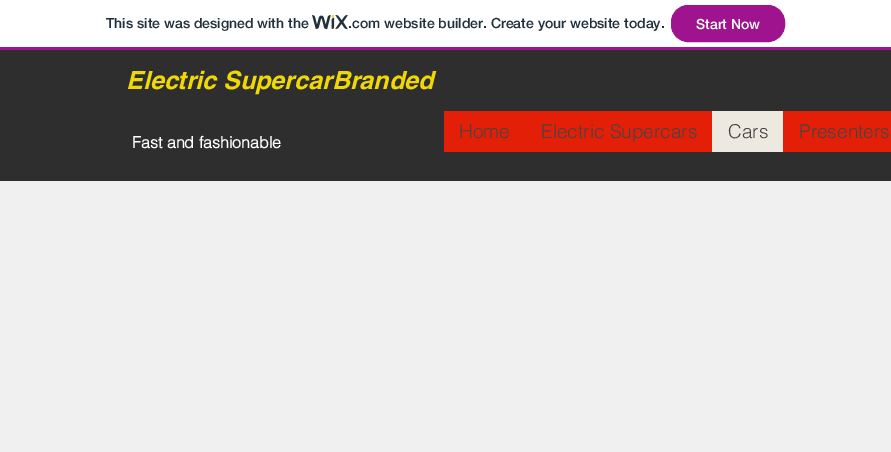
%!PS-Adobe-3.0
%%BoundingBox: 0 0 891 452
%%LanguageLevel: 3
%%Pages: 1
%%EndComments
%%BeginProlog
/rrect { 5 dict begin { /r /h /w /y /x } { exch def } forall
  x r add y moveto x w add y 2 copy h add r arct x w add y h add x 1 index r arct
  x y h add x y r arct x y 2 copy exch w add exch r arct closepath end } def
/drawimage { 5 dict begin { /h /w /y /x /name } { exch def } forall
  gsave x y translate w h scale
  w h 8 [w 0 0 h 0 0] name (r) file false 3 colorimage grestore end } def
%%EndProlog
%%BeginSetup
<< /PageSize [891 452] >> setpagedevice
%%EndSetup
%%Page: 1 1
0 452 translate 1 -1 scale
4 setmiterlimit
1 setgray
0 0 891 452 rectfill
0.627 0.075 0.557 setrgbcolor
0 47 891 3 rectfill
(images/1.raw) 312 15 36 15 drawimage
671.5 5.5 113 36 16.5 rrect gsave fill grestore
stroke
0.184 0.18 0.18 setrgbcolor
0 50 891 131 rectfill
0.89 0.125 0.027 setrgbcolor
444 111 447 41 rectfill
0.929 0.914 0.882 setrgbcolor
712 111 71 41 rectfill
0.941 setgray
0 181 891 271 rectfill
/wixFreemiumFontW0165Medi-Medium [14 0 0 -14 0 0] selectfont
0.125 0.188 0.235 setrgbcolor
106 28 moveto (This site was designed with the) show
348 28 moveto (.com website builder. Create your website today.) show
1 setgray
696 29 moveto (Start Now) show
/helvetica-BoldItalic [25 0 0 -25 0 0] selectfont
0.941 0.847 0.027 setrgbcolor
126 89 moveto (Electric SupercarBranded) show
/helvetica-Bold [16 0 0 -16 0 0] selectfont
1 setgray
132 148 moveto (Fast and fashionable) show
/helvetica-Light [19 0 0 -19 0 0] selectfont
0.267 setgray
459 138 moveto (Home) show
541 138 moveto (Electric Supercars) show
728 138 moveto (Cars) show
799 138 moveto (Presenters) show
showpage
%%EOF
